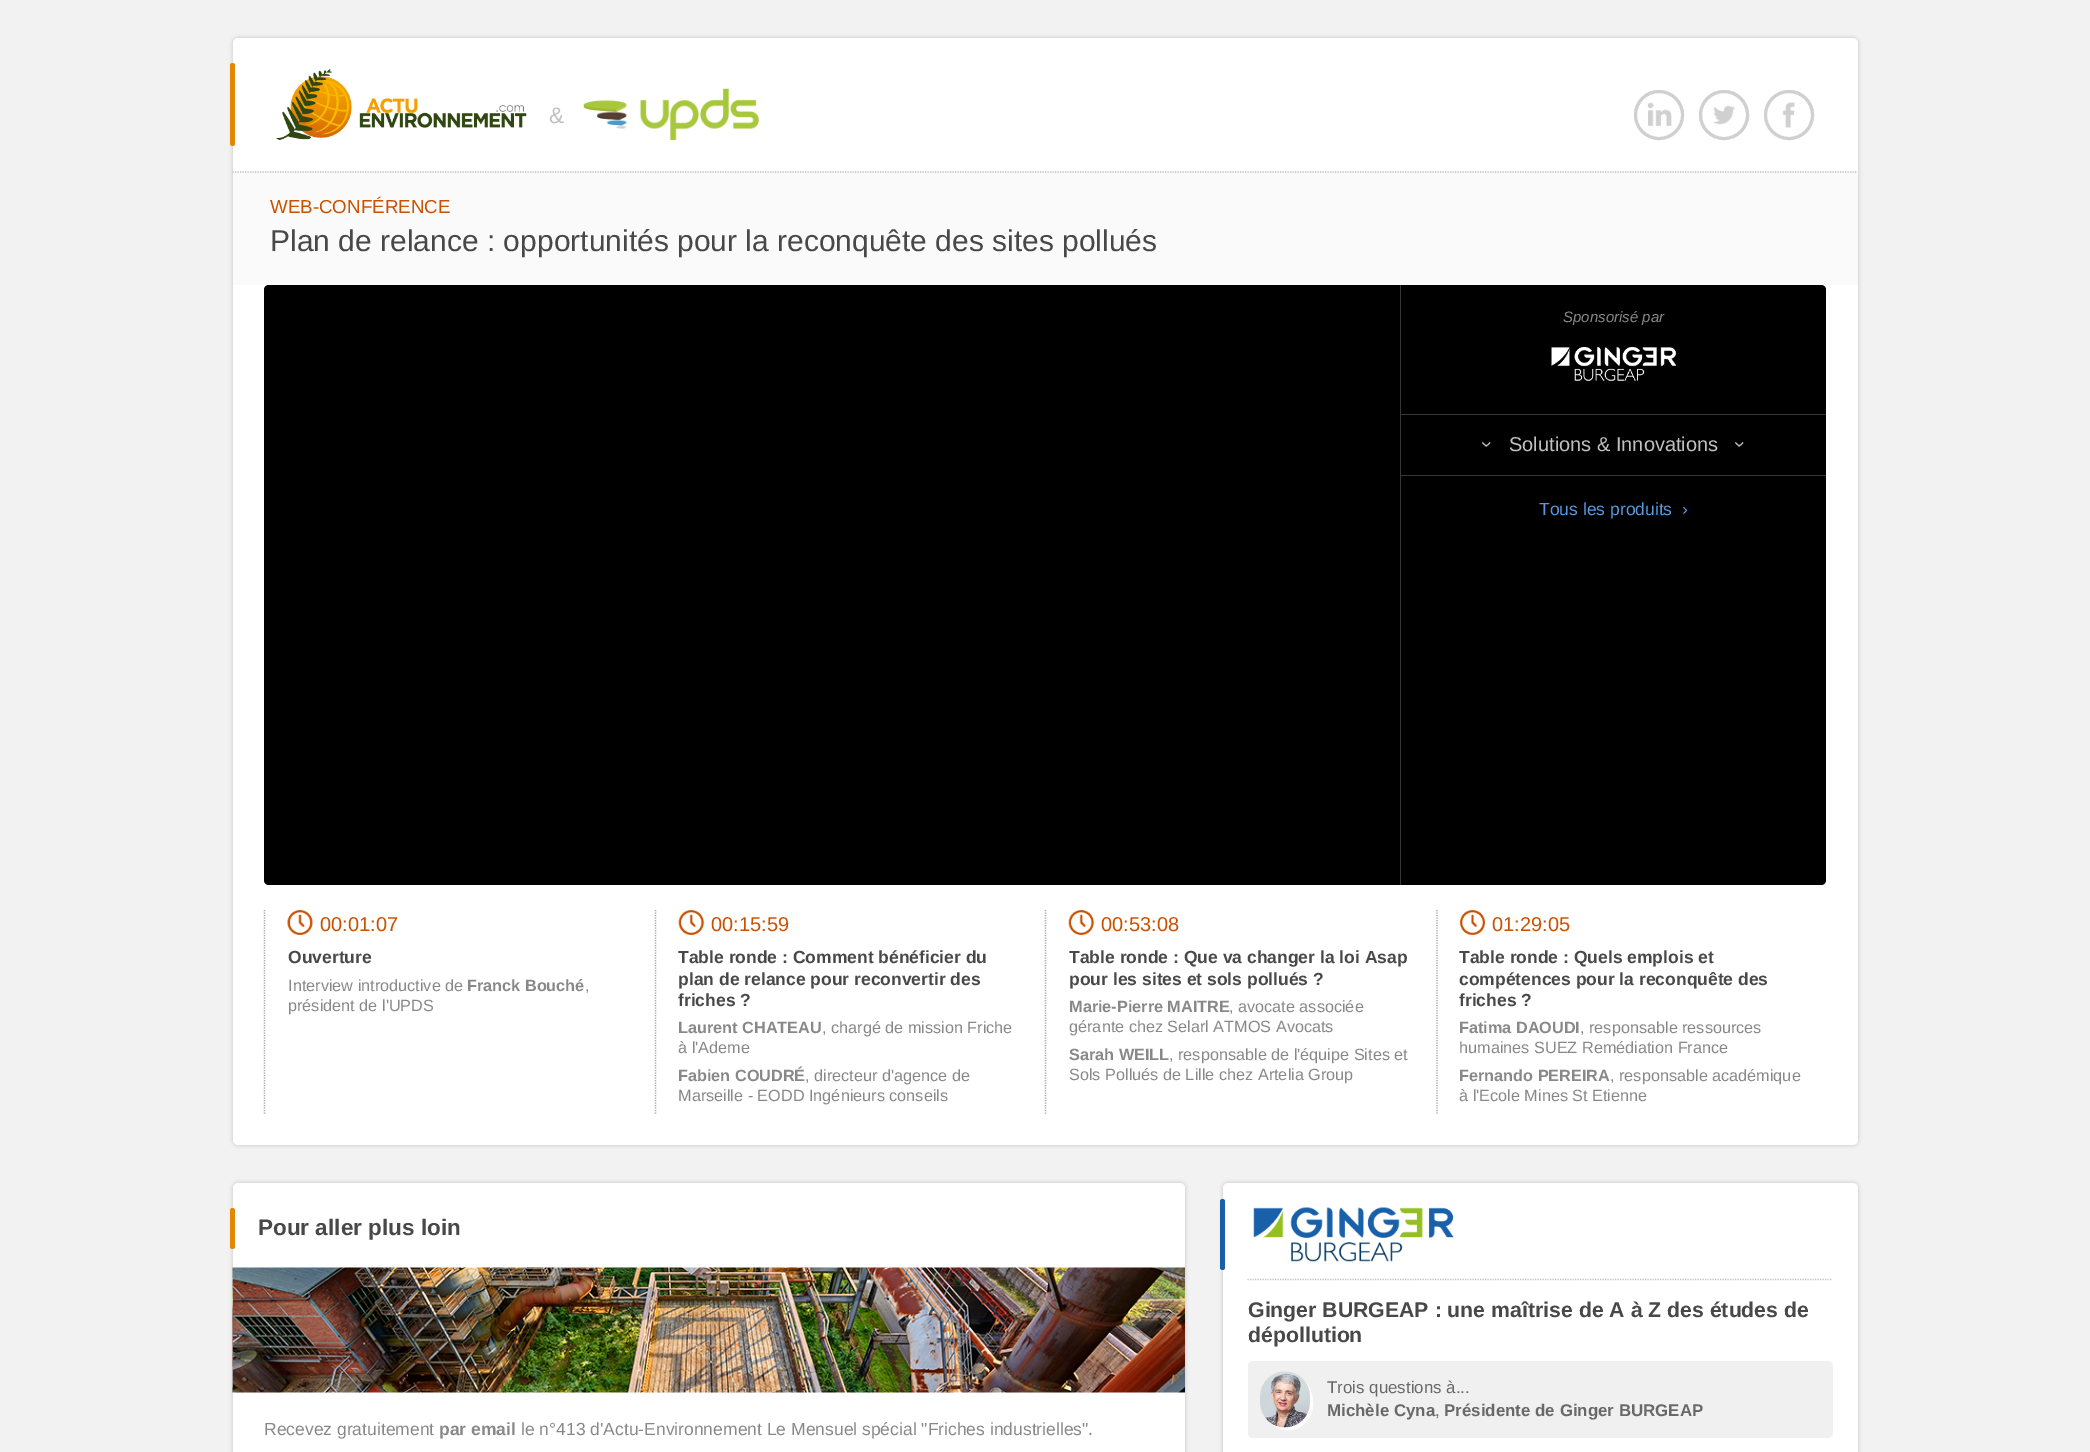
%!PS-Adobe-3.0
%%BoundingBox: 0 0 2090 1452
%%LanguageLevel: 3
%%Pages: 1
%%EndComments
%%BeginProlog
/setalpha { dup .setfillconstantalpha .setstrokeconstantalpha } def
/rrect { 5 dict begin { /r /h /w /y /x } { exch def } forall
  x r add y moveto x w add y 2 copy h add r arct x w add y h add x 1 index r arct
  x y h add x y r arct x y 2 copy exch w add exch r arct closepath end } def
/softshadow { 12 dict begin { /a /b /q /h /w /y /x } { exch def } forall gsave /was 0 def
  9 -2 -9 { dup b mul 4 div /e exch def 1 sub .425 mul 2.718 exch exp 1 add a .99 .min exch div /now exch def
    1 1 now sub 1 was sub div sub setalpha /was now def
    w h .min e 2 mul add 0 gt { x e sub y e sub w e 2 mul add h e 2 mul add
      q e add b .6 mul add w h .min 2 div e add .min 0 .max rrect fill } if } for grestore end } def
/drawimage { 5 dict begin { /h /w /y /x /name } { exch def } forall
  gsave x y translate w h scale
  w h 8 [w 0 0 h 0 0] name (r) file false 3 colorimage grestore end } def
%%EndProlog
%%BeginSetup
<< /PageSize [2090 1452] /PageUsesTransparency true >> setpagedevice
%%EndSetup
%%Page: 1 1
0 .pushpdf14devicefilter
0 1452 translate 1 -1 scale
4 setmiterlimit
0.949 setgray
0 0 2090 1452 rectfill
0 setgray
233 38 1625 1107 5 2 0.2 softshadow
1 setgray
233 38 1625 1107 5 rrect fill
0.894 0.529 0.012 setrgbcolor
230 63 5 83 2.5 rrect fill
(images/1.raw) 276 69 251 71 drawimage
(images/2.raw) 583 88 176 52 drawimage
0.816 setgray
newpath 1659 115 25 0 360 arc closepath fill
(images/3.raw) 1634 90 50 50 drawimage
3 setlinewidth
newpath 1659 115 23.5 0 360 arc closepath stroke
newpath 1724 115 25 0 360 arc closepath fill
(images/4.raw) 1699 90 50 50 drawimage
newpath 1724 115 23.5 0 360 arc closepath stroke
newpath 1789 115 25 0 360 arc closepath fill
(images/5.raw) 1764 90 50 50 drawimage
newpath 1789 115 23.5 0 360 arc closepath stroke
0.98 setgray
233 171 1625 114 rectfill
0.753 setgray
1.2 setlinewidth
[1.25 1.25] 0 setdash
newpath 232.5 172 moveto 1857.5 172 lineto stroke
0 setgray
newpath 269 285 moveto 1400 285 lineto 1400 885 lineto 269 885 lineto 266 885 264 883 264 880 curveto 264 290 lineto 264 287 266 285 269 285 curveto closepath fill
newpath 1400 285 moveto 1821 285 lineto 1824 285 1826 287 1826 290 curveto 1826 880 lineto 1826 883 1824 885 1821 885 curveto 1400 885 lineto closepath fill
0.22 setgray
1400 285 1 600 rectfill
1401 414 425 1 rectfill
(images/6.raw) 1551 347 126 34 drawimage
1401 475 425 1 rectfill
0.659 setgray
newpath 264.5 910 moveto 264.5 1114 lineto stroke
(images/7.raw) 287 910 26 25 drawimage
newpath 655.5 910 moveto 655.5 1114 lineto stroke
(images/8.raw) 678 910 26 25 drawimage
newpath 1045.5 910 moveto 1045.5 1114 lineto stroke
(images/8.raw) 1068 910 26 25 drawimage
newpath 1437 910 moveto 1437 1114 lineto stroke
(images/9.raw) 1460 910 25 25 drawimage
0 setgray
233 1183 952 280 5 2 0.2 softshadow
1 setgray
233 1183 952 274 5 rrect fill
0.894 0.529 0.012 setrgbcolor
230 1208 5 41 2.5 rrect fill
(images/10.raw) 232 1267 953 126 drawimage
0 setgray
1223 1183 635 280 5 2 0.2 softshadow
1 setgray
1223 1183 635 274 5 rrect fill
0.753 setgray
newpath 1247.5 1279.5 moveto 1832.5 1279.5 lineto stroke
0.094 0.376 0.667 setrgbcolor
1220 1199 5 71 2.5 rrect fill
(images/11.raw) 1253 1207 201 55 drawimage
0.941 setgray
1248 1361 585 77 5 rrect fill
1 setgray
newpath 1271 1423 moveto 1281 1434 1300 1432 1309 1419 curveto 1316 1408 1314 1388 1303 1379 curveto 1312 1388 1312 1406 1306 1416 curveto 1298 1428 1282 1431 1271 1423 curveto closepath fill
(images/12.raw) 1260 1371 50 57 drawimage
/LiberationSans-Regular [22.5 0 0 -22.5 0 0] selectfont
0.753 setgray
549 123 moveto (&) show
/LiberationSans-Regular [18.75 0 0 -18.75 0 0] selectfont
0.788 0.318 0 setrgbcolor
270 213 moveto (WEB-CONFÉRENCE) show
/LiberationSans-Regular [30 0 0 -30 0 0] selectfont
0.282 setgray
270 251 moveto (Plan de relance : opportunités pour la reconquête des sites pollués) show
/LiberationSans-Italic [15 0 0 -15 0 0] selectfont
0.533 setgray
1563 322 moveto (Sponsorisé par) show
/LiberationSans-Regular [20 0 0 -20 0 0] selectfont
0.753 setgray
gsave 1481 441 translate 90 rotate 0 0 moveto (›) show grestore
1509 451 moveto (Solutions & Innovations) show
gsave 1734 441 translate 90 rotate 0 0 moveto (›) show grestore
/LiberationSans-Regular [17.5 0 0 -17.5 0 0] selectfont
0.341 0.596 0.871 setrgbcolor
1539 515 moveto (Tous les produits  ›) show
/LiberationSans-Regular [20 0 0 -20 0 0] selectfont
0.788 0.318 0 setrgbcolor
320 931 moveto (00:01:07) show
/LiberationSans-Bold [17.5 0 0 -17.5 0 0] selectfont
0.282 setgray
288 963 moveto (Ouverture) show
/LiberationSans-Regular [16.25 0 0 -16.25 0 0] selectfont
0.533 setgray
288 991 moveto (Interview introductive de) show
/LiberationSans-Bold [16.25 0 0 -16.25 0 0] selectfont
467 991 moveto (Franck Bouché) show
/LiberationSans-Regular [16.25 0 0 -16.25 0 0] selectfont
585 991 moveto (,) show
288 1011 moveto (président de l'UPDS) show
/LiberationSans-Regular [20 0 0 -20 0 0] selectfont
0.788 0.318 0 setrgbcolor
711 931 moveto (00:15:59) show
/LiberationSans-Bold [17.5 0 0 -17.5 0 0] selectfont
0.282 setgray
678 963 moveto (Table ronde : Comment bénéficier du) show
678 985 moveto (plan de relance pour reconvertir des) show
678 1006 moveto (friches ?) show
/LiberationSans-Bold [16.25 0 0 -16.25 0 0] selectfont
0.533 setgray
678 1033 moveto (Laurent CHATEAU) show
/LiberationSans-Regular [16.25 0 0 -16.25 0 0] selectfont
822 1033 moveto (, chargé de mission Friche) show
678 1053 moveto (à l'Ademe) show
/LiberationSans-Bold [16.25 0 0 -16.25 0 0] selectfont
678 1081 moveto (Fabien COUDRÉ) show
/LiberationSans-Regular [16.25 0 0 -16.25 0 0] selectfont
805 1081 moveto (, directeur d'agence de) show
678 1101 moveto (Marseille - EODD Ingénieurs conseils) show
/LiberationSans-Regular [20 0 0 -20 0 0] selectfont
0.788 0.318 0 setrgbcolor
1101 931 moveto (00:53:08) show
/LiberationSans-Bold [17.5 0 0 -17.5 0 0] selectfont
0.282 setgray
1069 963 moveto (Table ronde : Que va changer la loi Asap) show
1069 985 moveto (pour les sites et sols pollués ?) show
/LiberationSans-Bold [16.25 0 0 -16.25 0 0] selectfont
0.533 setgray
1069 1012 moveto (Marie-Pierre MAITRE) show
/LiberationSans-Regular [16.25 0 0 -16.25 0 0] selectfont
1229 1012 moveto (, avocate associée) show
1069 1032 moveto (gérante chez Selarl ATMOS Avocats) show
/LiberationSans-Bold [16.25 0 0 -16.25 0 0] selectfont
1069 1060 moveto (Sarah WEILL) show
/LiberationSans-Regular [16.25 0 0 -16.25 0 0] selectfont
1169 1060 moveto (, responsable de l'équipe Sites et) show
1069 1080 moveto (Sols Pollués de Lille chez Artelia Group) show
/LiberationSans-Regular [20 0 0 -20 0 0] selectfont
0.788 0.318 0 setrgbcolor
1492 931 moveto (01:29:05) show
/LiberationSans-Bold [17.5 0 0 -17.5 0 0] selectfont
0.282 setgray
1459 963 moveto (Table ronde : Quels emplois et) show
1459 985 moveto (compétences pour la reconquête des) show
1459 1006 moveto (friches ?) show
/LiberationSans-Bold [16.25 0 0 -16.25 0 0] selectfont
0.533 setgray
1459 1033 moveto (Fatima DAOUDI) show
/LiberationSans-Regular [16.25 0 0 -16.25 0 0] selectfont
1580 1033 moveto (, responsable ressources) show
1459 1053 moveto (humaines SUEZ Remédiation France) show
/LiberationSans-Bold [16.25 0 0 -16.25 0 0] selectfont
1459 1081 moveto (Fernando PEREIRA) show
/LiberationSans-Regular [16.25 0 0 -16.25 0 0] selectfont
1610 1081 moveto (, responsable académique) show
1459 1101 moveto (à l'Ecole Mines St Etienne) show
/LiberationSans-Bold [22.5 0 0 -22.5 0 0] selectfont
0.282 setgray
258 1235 moveto (Pour aller plus loin) show
/LiberationSans-Regular [17.5 0 0 -17.5 0 0] selectfont
0.533 setgray
264 1435 moveto (Recevez gratuitement) show
/LiberationSans-Bold [17.5 0 0 -17.5 0 0] selectfont
439 1435 moveto (par email) show
/LiberationSans-Regular [17.5 0 0 -17.5 0 0] selectfont
521 1435 moveto (le n°413 d'Actu-Environnement Le Mensuel spécial "Friches industrielles".) show
/LiberationSans-Bold [21.25 0 0 -21.25 0 0] selectfont
0.282 setgray
1248 1317 moveto (Ginger BURGEAP : une maîtrise de A à Z des études de) show
1248 1342 moveto (dépollution) show
/LiberationSans-Regular [16.9 0 0 -16.9 0 0] selectfont
0.408 setgray
1327 1393 moveto (Trois questions à...) show
/LiberationSans-Bold [16.9 0 0 -16.9 0 0] selectfont
1327 1416 moveto (Michèle Cyna) show
/LiberationSans-Regular [16.9 0 0 -16.9 0 0] selectfont
1435 1416 moveto (,) show
/LiberationSans-Bold [16.9 0 0 -16.9 0 0] selectfont
1444 1416 moveto (Présidente de Ginger BURGEAP) show
.poppdf14devicefilter showpage
%%EOF
